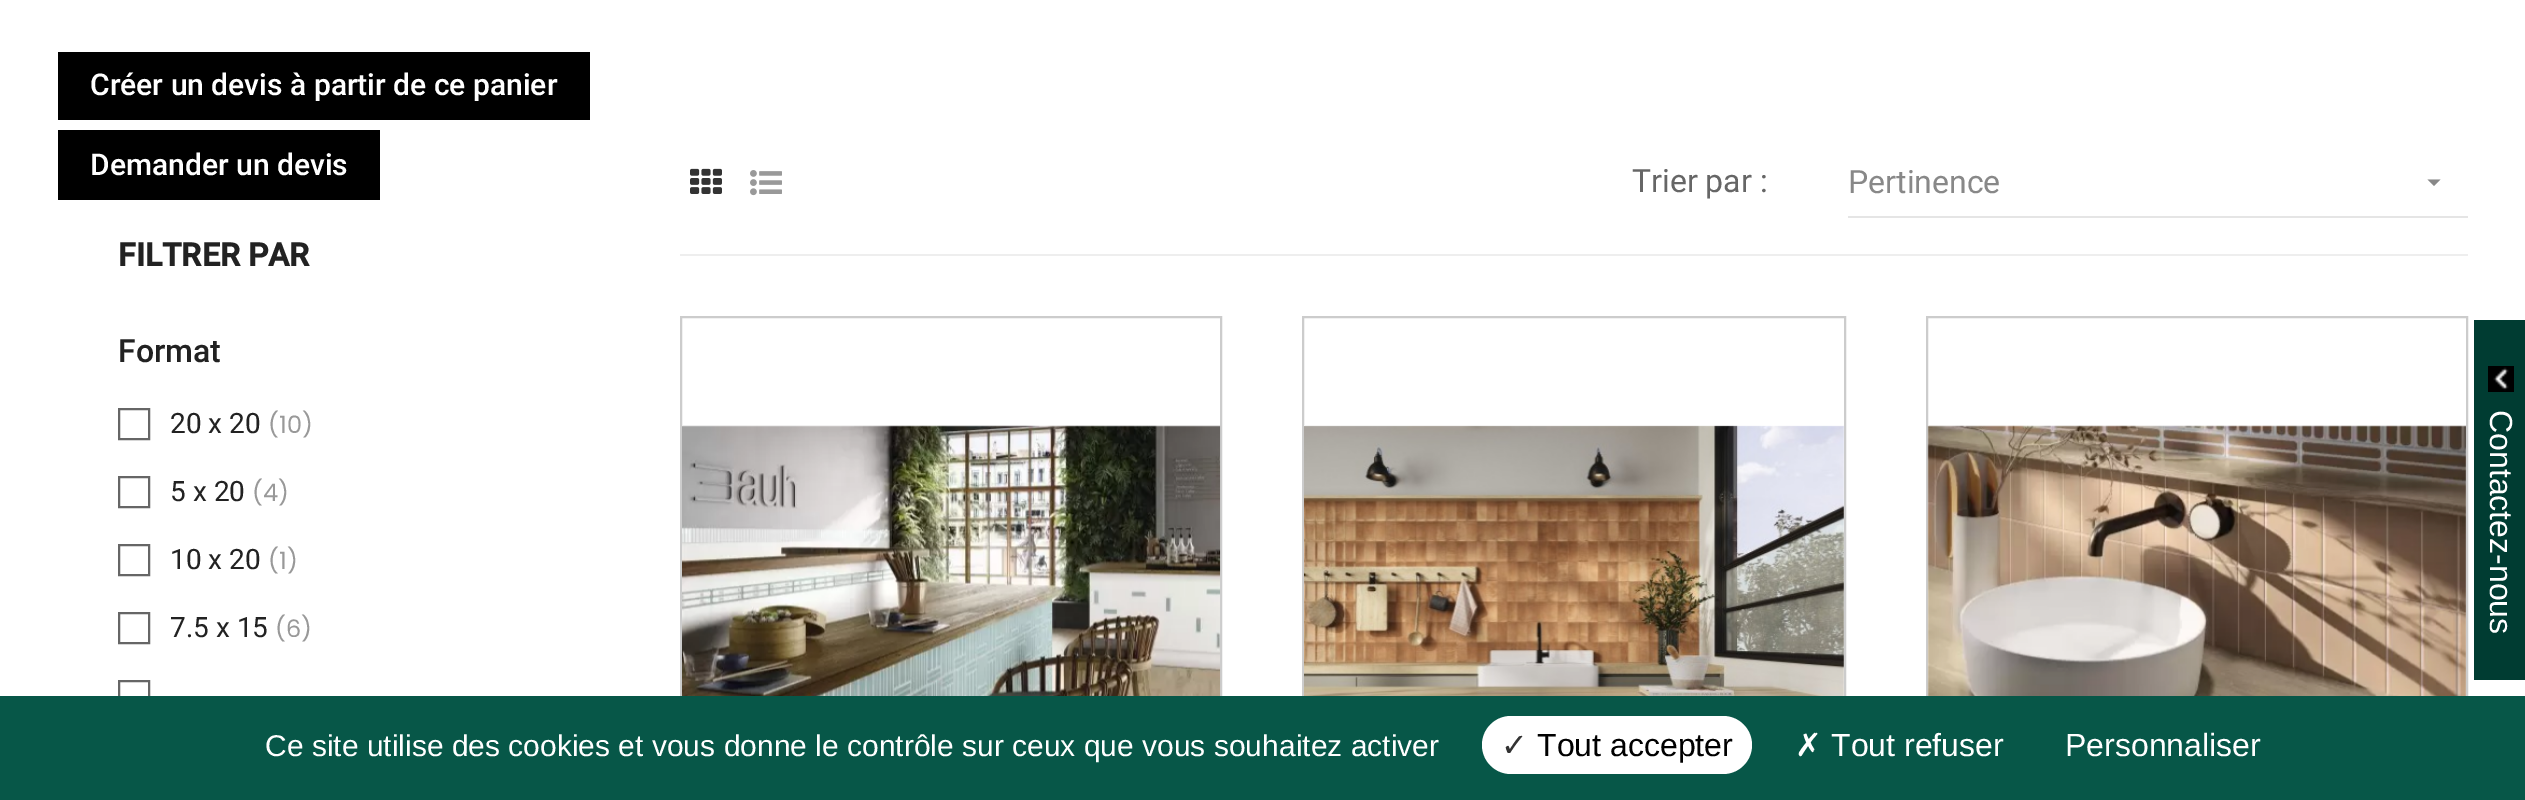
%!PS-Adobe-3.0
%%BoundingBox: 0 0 2525 800
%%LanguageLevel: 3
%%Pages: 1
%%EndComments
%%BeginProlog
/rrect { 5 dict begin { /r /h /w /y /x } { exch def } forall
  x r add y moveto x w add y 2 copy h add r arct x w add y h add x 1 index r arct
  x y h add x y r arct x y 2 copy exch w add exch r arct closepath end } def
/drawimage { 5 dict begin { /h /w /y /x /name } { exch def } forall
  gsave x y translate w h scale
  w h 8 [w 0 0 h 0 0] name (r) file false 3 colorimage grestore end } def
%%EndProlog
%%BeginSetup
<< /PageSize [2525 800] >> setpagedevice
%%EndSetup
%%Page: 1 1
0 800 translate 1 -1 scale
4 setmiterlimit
1 setgray
0 0 2525 800 rectfill
0 setgray
58 52 532 68 rectfill
58 130 322 70 rectfill
0.4 setgray
2 setlinewidth
119 409 30 30 rectstroke
119 477 30 30 rectstroke
119 545 30 30 rectstroke
119 613 30 30 rectstroke
119 681 30 30 rectstroke
0.933 setgray
680 254 1788 2 rectfill
(images/1.raw) 690 168 32 26 drawimage
(images/2.raw) 750 170 32 26 drawimage
0.898 setgray
1848 216 620 2 rectfill
0.533 setgray
newpath 2427.5 179.5 moveto 2434 186 lineto 2440.5 179.5 lineto closepath fill
0.8 setgray
681 317 540 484 rectstroke
(images/3.raw) 682 425 539 271 drawimage
1303 317 542 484 rectstroke
(images/4.raw) 1304 425 540 271 drawimage
1927 317 540 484 rectstroke
(images/5.raw) 1927 425 539 271 drawimage
0 0.235 0.196 setrgbcolor
2474 320 51 360 rectfill
(images/6.raw) 2488 366 26 26 drawimage
0.027 0.341 0.282 setrgbcolor
0 696 2525 104 rectfill
1 setgray
1482 716 270 58 29 rrect fill
/Heebo-Medium [30 0 0 -30 0 0] selectfont
90 95 moveto (Créer un devis à partir de ce panier) show
90 175 moveto (Demander un devis) show
/Heebo-Bold [32 0 0 -32 0 0] selectfont
0.133 setgray
118 266 moveto (FILTRER PAR) show
/Heebo-Medium [32 0 0 -32 0 0] selectfont
118 362 moveto (Format) show
/Heebo-Regular [28 0 0 -28 0 0] selectfont
170 433 moveto (20 x 20) show
/Poppins-Regular [24 0 0 -24 0 0] selectfont
0.6 setgray
268 433 moveto (\(10\)) show
/Heebo-Regular [28 0 0 -28 0 0] selectfont
0.133 setgray
170 501 moveto (5 x 20) show
/Poppins-Regular [24 0 0 -24 0 0] selectfont
0.6 setgray
252 501 moveto (\(4\)) show
/Heebo-Regular [28 0 0 -28 0 0] selectfont
0.133 setgray
170 569 moveto (10 x 20) show
/Poppins-Regular [24 0 0 -24 0 0] selectfont
0.6 setgray
268 569 moveto (\(1\)) show
/Heebo-Regular [28 0 0 -28 0 0] selectfont
0.133 setgray
170 637 moveto (7.5 x 15) show
/Poppins-Regular [24 0 0 -24 0 0] selectfont
0.6 setgray
275 637 moveto (\(6\)) show
/Heebo-Regular [32 0 0 -32 0 0] selectfont
0.4 setgray
1632 192 moveto (Trier par :) show
0.533 setgray
1848 193 moveto (Pertinence) show
/LiberationSans-Regular [32 0 0 -32 0 0] selectfont
1 setgray
gsave 2490 410 translate 90 rotate 0 0 moveto (Contactez-nous) show grestore
/LiberationSans-Regular [30 0 0 -30 0 0] selectfont
265 756 moveto (Ce site utilise des cookies et vous donne le contrôle sur ceux que vous souhaitez activer) show
/DejaVuSans-Regular [32 0 0 -32 0 0] selectfont
0.2 setgray
1501 756 moveto (✓) show
/LiberationSans-Regular [32 0 0 -32 0 0] selectfont
0 setgray
1537 756 moveto (Tout accepter) show
/DejaVuSans-Regular [32 0 0 -32 0 0] selectfont
1 setgray
1795 756 moveto (✗) show
/LiberationSans-Regular [32 0 0 -32 0 0] selectfont
1831 756 moveto (Tout refuser) show
2065 756 moveto (Personnaliser) show
showpage
%%EOF
